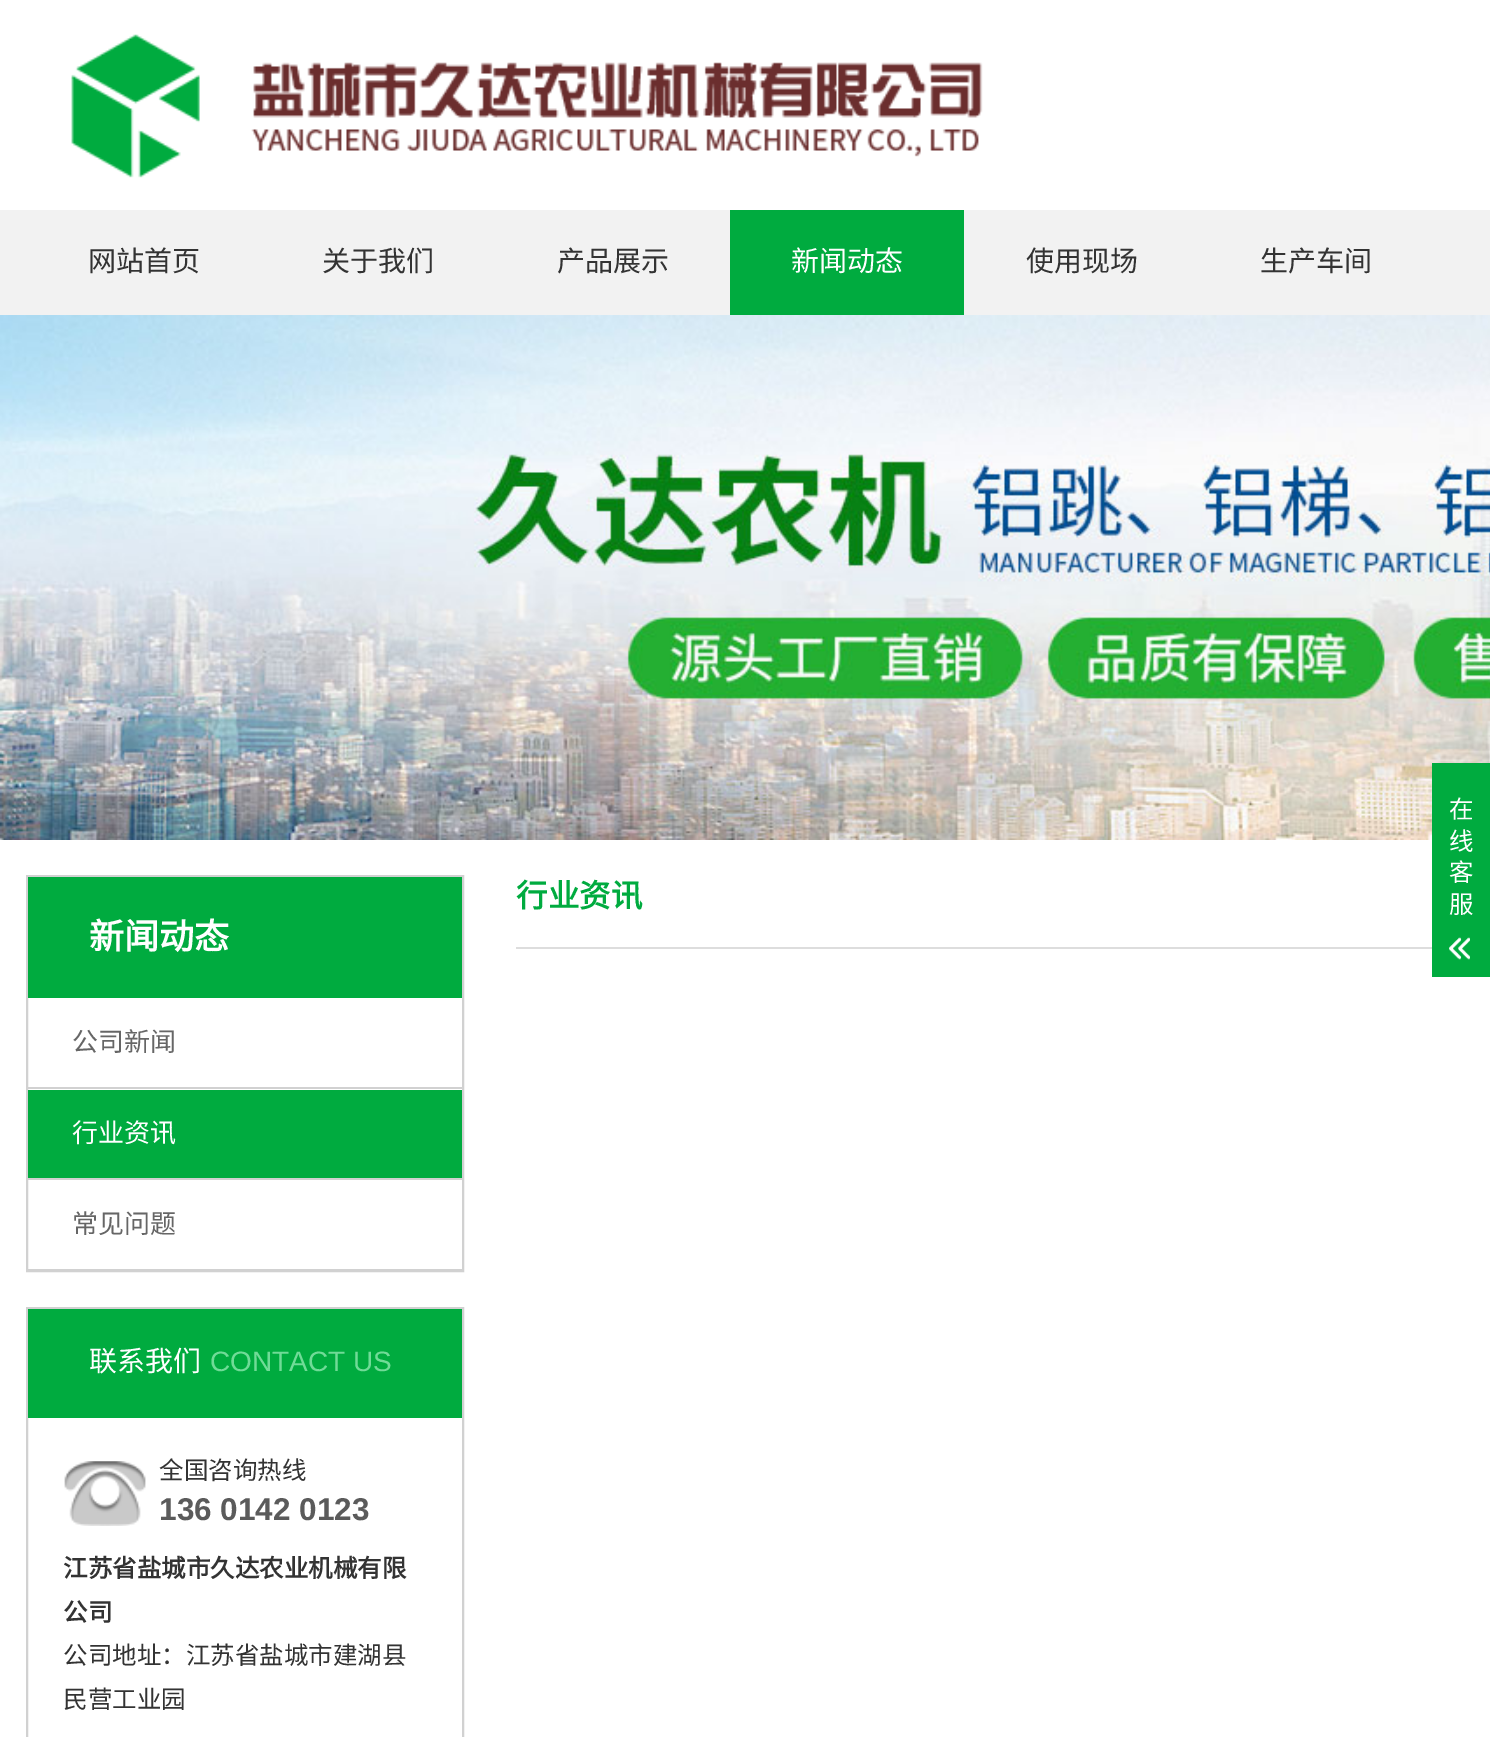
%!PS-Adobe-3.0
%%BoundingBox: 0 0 1490 1737
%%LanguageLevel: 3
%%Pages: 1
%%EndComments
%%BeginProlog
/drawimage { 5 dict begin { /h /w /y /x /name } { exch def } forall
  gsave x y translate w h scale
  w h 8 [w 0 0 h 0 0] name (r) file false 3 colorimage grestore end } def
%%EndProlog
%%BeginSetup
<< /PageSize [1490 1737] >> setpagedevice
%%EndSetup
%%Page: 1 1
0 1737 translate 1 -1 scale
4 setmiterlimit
1 setgray
0 0 1490 1737 rectfill
(images/1.raw) 71 34 912 144 drawimage
0.949 setgray
0 210 1490 105 rectfill
0 0.671 0.247 setrgbcolor
730 210 234 105 rectfill
(images/2.raw) 0 315 1490 525 drawimage
1432 763 58 214 rectfill
(images/3.raw) 1449 937 21 23 drawimage
0.867 setgray
516 947 916 2 rectfill
0.82 setgray
2 setlinewidth
27 876 436 395 rectstroke
0 0.671 0.247 setrgbcolor
28 877 434 121 rectfill
0.82 setgray
28 1087 434 2 rectfill
28 1178 434 2 rectfill
0 0.671 0.247 setrgbcolor
28 1090 434 88 rectfill
0.82 setgray
28 1269 434 1 rectfill
27 1308 436 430 rectstroke
0 0.671 0.247 setrgbcolor
28 1309 434 109 rectfill
(images/4.raw) 64 1461 82 65 drawimage
/NotoSansCJKSC-Regular [28 0 0 -28 0 0] selectfont
0.2 setgray
88 271 moveto (网站首页) show
322 271 moveto (关于我们) show
557 271 moveto (产品展示) show
1 setgray
791 271 moveto (新闻动态) show
0.2 setgray
1026 271 moveto (使用现场) show
1260 271 moveto (生产车间) show
/NotoSansCJKSC-Regular [24.5 0 0 -24.5 0 0] selectfont
1 setgray
1449 818 moveto (在) show
1449 850 moveto (线) show
1449 881 moveto (客) show
1449 913 moveto (服) show
/NotoSansCJKSC-Bold [31.5 0 0 -31.5 0 0] selectfont
0 0.671 0.247 setrgbcolor
516 907 moveto (行业资讯) show
/NotoSansCJKSC-Bold [35 0 0 -35 0 0] selectfont
1 setgray
89 949 moveto (新闻动态) show
/NotoSansCJKSC-Regular [26 0 0 -26 0 0] selectfont
0.4 setgray
72 1051 moveto (公司新闻) show
1 setgray
72 1142 moveto (行业资讯) show
0.4 setgray
72 1233 moveto (常见问题) show
/NotoSansCJKSC-Regular [28 0 0 -28 0 0] selectfont
1 setgray
89 1371 moveto (联系我们) show
/LiberationSans-Regular [28 0 0 -28 0 0] selectfont
0.439 0.859 0.592 setrgbcolor
210 1371 moveto (CONTACT US) show
/NotoSansCJKSC-Regular [24.5 0 0 -24.5 0 0] selectfont
0.2 setgray
159 1479 moveto (全国咨询热线) show
/LiberationSans-Bold [31.5 0 0 -31.5 0 0] selectfont
0.357 setgray
159 1520 moveto (136 0142 0123) show
/NotoSansCJKSC-Bold [24.5 0 0 -24.5 0 0] selectfont
0.2 setgray
63 1577 moveto (江苏省盐城市久达农业机械有限) show
63 1621 moveto (公司) show
/NotoSansCJKSC-Regular [24.5 0 0 -24.5 0 0] selectfont
63 1664 moveto (公司地址：江苏省盐城市建湖县) show
63 1708 moveto (民营工业园) show
showpage
%%EOF
